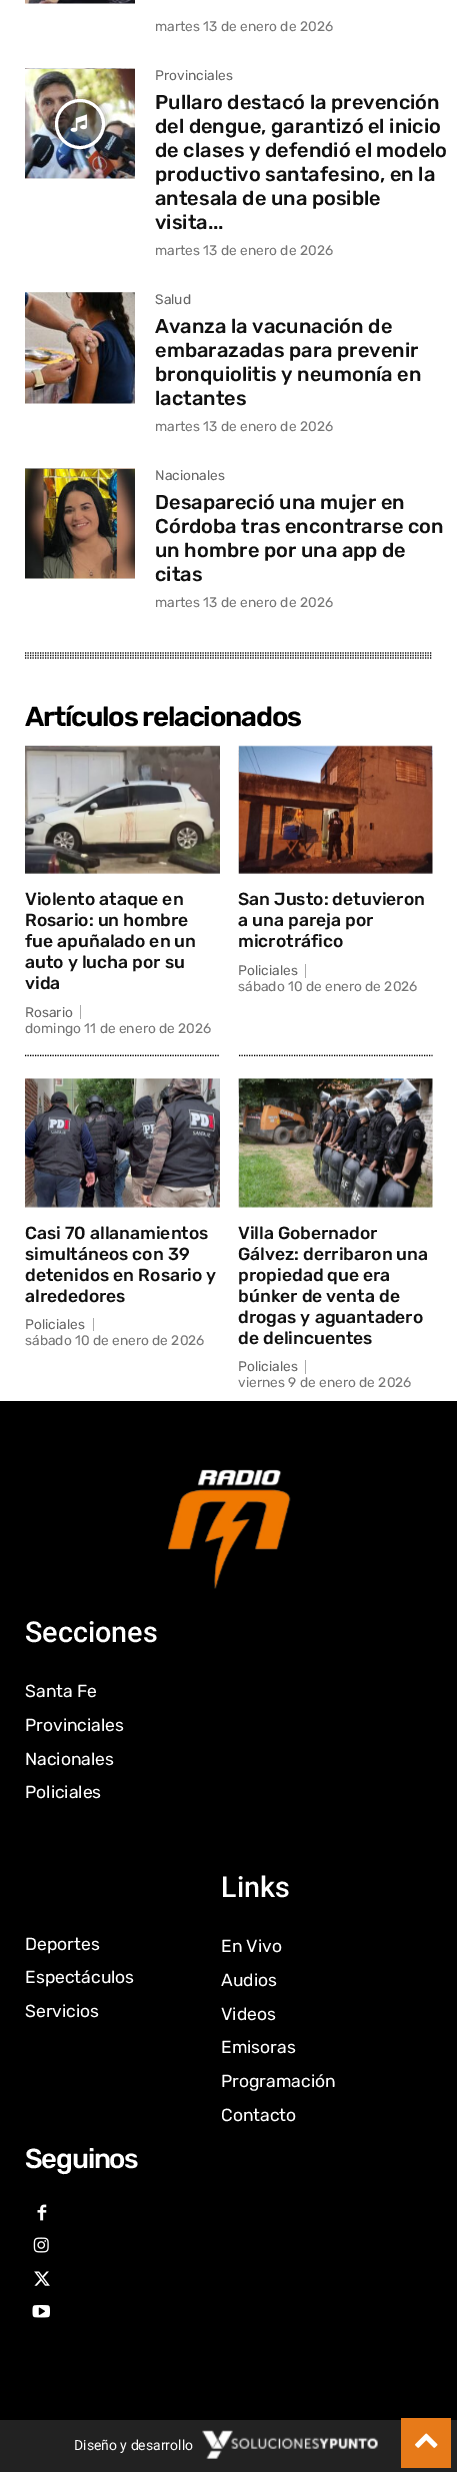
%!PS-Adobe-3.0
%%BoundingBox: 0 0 457 2472
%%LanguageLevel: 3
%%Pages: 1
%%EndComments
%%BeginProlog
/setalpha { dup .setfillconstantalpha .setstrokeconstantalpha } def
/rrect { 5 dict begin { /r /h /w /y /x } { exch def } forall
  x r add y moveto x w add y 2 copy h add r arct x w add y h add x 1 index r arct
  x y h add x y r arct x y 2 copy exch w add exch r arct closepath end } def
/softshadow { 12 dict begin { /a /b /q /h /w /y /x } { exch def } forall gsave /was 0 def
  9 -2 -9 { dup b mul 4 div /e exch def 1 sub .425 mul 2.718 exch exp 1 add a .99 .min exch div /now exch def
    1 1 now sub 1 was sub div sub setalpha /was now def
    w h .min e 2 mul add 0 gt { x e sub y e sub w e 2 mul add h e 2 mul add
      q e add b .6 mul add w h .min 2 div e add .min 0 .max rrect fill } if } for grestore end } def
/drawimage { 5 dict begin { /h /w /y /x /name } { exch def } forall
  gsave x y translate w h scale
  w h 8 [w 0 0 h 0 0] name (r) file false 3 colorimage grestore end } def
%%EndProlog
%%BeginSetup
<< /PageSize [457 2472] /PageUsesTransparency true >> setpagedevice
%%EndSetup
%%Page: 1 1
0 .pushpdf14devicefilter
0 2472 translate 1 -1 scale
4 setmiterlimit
1 setgray
0 0 457 2472 rectfill
(images/1.raw) 25 0 110 4 drawimage
(images/2.raw) 25 68 110 111 drawimage
gsave
newpath 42 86 moveto 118 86 lineto 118 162 lineto 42 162 lineto closepath 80 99 moveto 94 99 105 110 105 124 curveto 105 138 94 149 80 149 curveto 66 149 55 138 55 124 curveto 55 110 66 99 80 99 curveto closepath eoclip newpath
0 setgray
55 99 50 50 25 4 0.4 softshadow
grestore
0.48 setalpha
0 setgray
newpath 80 124 23.5 0 360 arc closepath fill
1 setalpha
1 setgray
3 setlinewidth
newpath 80 124 23.5 0 360 arc closepath stroke
(images/3.raw) 70 114 17 18 drawimage
(images/4.raw) 25 292 110 112 drawimage
(images/5.raw) 25 468 110 111 drawimage
0.039 setgray
1.2 setlinewidth
[1.25 1.25] 0 setdash
newpath 25 653 moveto 432.5 653 lineto stroke
newpath 25 655.5 moveto 432.5 655.5 lineto stroke
newpath 25 658 moveto 432.5 658 lineto stroke
(images/6.raw) 25 745 195 129 drawimage
0.667 setgray
80 1005 1 14 rectfill
0 setgray
newpath 25 1055.5 moveto 220 1055.5 lineto stroke
(images/7.raw) 238 745 195 129 drawimage
0.667 setgray
305 964 1 14 rectfill
0 setgray
newpath 239 1055.5 moveto 432.5 1055.5 lineto stroke
(images/8.raw) 25 1078 195 130 drawimage
0.667 setgray
93 1318 1 13 rectfill
(images/9.raw) 238 1078 195 130 drawimage
305 1360 1 14 rectfill
0 setgray
0 1401 457 1019 rectfill
(images/10.raw) 168 1469 123 120 drawimage
(images/11.raw) 37 2204 10 17 drawimage
(images/12.raw) 33 2237 16 16 drawimage
(images/13.raw) 34 2271 16 15 drawimage
(images/14.raw) 32 2305 18 13 drawimage
0.133 setgray
0 2420 457 52 rectfill
(images/15.raw) 202 2430 176 29 drawimage
0.906 0.478 0.098 setrgbcolor
401 2418 50 50 rectfill
(images/16.raw) 415 2433 23 15 drawimage
/Rubik-Regular [13.75 0 0 -13.75 0 0] selectfont
0.463 setgray
155 31 moveto (martes 13 de enero de 2026) show
0.4 setgray
155 80 moveto (Provinciales) show
/Rubik-Medium [20 0 0 -20 0 0] selectfont
0.067 setgray
155 109 moveto (Pullaro destacó la prevención) show
155 133 moveto (del dengue, garantizó el inicio) show
155 157 moveto (de clases y defendió el modelo) show
155 181 moveto (productivo santafesino, en la) show
155 205 moveto (antesala de una posible) show
155 229 moveto (visita...) show
/Rubik-Regular [13.75 0 0 -13.75 0 0] selectfont
0.463 setgray
155 255 moveto (martes 13 de enero de 2026) show
0.4 setgray
155 304 moveto (Salud) show
/Rubik-Medium [20 0 0 -20 0 0] selectfont
0.067 setgray
155 333 moveto (Avanza la vacunación de) show
155 357 moveto (embarazadas para prevenir) show
155 381 moveto (bronquiolitis y neumonía en) show
155 405 moveto (lactantes) show
/Rubik-Regular [13.75 0 0 -13.75 0 0] selectfont
0.463 setgray
155 431 moveto (martes 13 de enero de 2026) show
0.4 setgray
155 480 moveto (Nacionales) show
/Rubik-Medium [20 0 0 -20 0 0] selectfont
0.067 setgray
155 509 moveto (Desapareció una mujer en) show
155 533 moveto (Córdoba tras encontrarse con) show
155 557 moveto (un hombre por una app de) show
155 581 moveto (citas) show
/Rubik-Regular [13.75 0 0 -13.75 0 0] selectfont
0.463 setgray
155 607 moveto (martes 13 de enero de 2026) show
/Rubik-SemiBold [27.5 0 0 -27.5 0 0] selectfont
0 setgray
25 726 moveto -1.25 0 (Artículos relacionados) ashow
/Rubik-Medium [17.5 0 0 -17.5 0 0] selectfont
0.067 setgray
25 905 moveto (Violento ataque en) show
25 926 moveto (Rosario: un hombre) show
25 947 moveto (fue apuñalado en un) show
25 968 moveto (auto y lucha por su) show
25 989 moveto (vida) show
/Rubik-Regular [13.75 0 0 -13.75 0 0] selectfont
0.4 setgray
25 1017 moveto (Rosario) show
0.463 setgray
25 1033 moveto (domingo 11 de enero de 2026) show
/Rubik-Medium [17.5 0 0 -17.5 0 0] selectfont
0.067 setgray
238 905 moveto (San Justo: detuvieron) show
238 926 moveto (a una pareja por) show
238 947 moveto (microtráfico) show
/Rubik-Regular [13.75 0 0 -13.75 0 0] selectfont
0.4 setgray
238 975 moveto (Policiales) show
0.463 setgray
238 991 moveto (sábado 10 de enero de 2026) show
/Rubik-Medium [17.5 0 0 -17.5 0 0] selectfont
0.067 setgray
25 1239 moveto (Casi 70 allanamientos) show
25 1260 moveto (simultáneos con 39) show
25 1281 moveto (detenidos en Rosario y) show
25 1302 moveto (alrededores) show
/Rubik-Regular [13.75 0 0 -13.75 0 0] selectfont
0.4 setgray
25 1329 moveto (Policiales) show
0.463 setgray
25 1345 moveto (sábado 10 de enero de 2026) show
/Rubik-Medium [17.5 0 0 -17.5 0 0] selectfont
0.067 setgray
238 1239 moveto (Villa Gobernador) show
238 1260 moveto (Gálvez: derribaron una) show
238 1281 moveto (propiedad que era) show
238 1302 moveto (búnker de venta de) show
238 1323 moveto (drogas y aguantadero) show
238 1344 moveto (de delincuentes) show
/Rubik-Regular [13.75 0 0 -13.75 0 0] selectfont
0.4 setgray
238 1371 moveto (Policiales) show
0.463 setgray
238 1387 moveto (viernes 9 de enero de 2026) show
/Roboto-Medium [28.75 0 0 -28.75 0 0] selectfont
1 setgray
25 1642 moveto (Secciones) show
/Rubik-Regular [17.5 0 0 -17.5 0 0] selectfont
25 1697 moveto (Santa Fe) show
25 1731 moveto (Provinciales) show
25 1765 moveto (Nacionales) show
25 1798 moveto (Policiales) show
25 1950 moveto (Deportes) show
25 1983 moveto (Espectáculos) show
25 2017 moveto (Servicios) show
/Roboto-Medium [28.75 0 0 -28.75 0 0] selectfont
221 1897 moveto (Links) show
/Rubik-Regular [17.5 0 0 -17.5 0 0] selectfont
221 1952 moveto (En Vivo) show
221 1986 moveto (Audios) show
221 2020 moveto (Videos) show
221 2053 moveto (Emisoras) show
221 2087 moveto (Programación) show
221 2121 moveto (Contacto) show
/Rubik-Medium [27.5 0 0 -27.5 0 0] selectfont
25 2168 moveto -1.25 0 (Seguinos) ashow
/Roboto-Regular [14 0 0 -14 0 0] selectfont
74 2450 moveto (Diseño y desarrollo) show
.poppdf14devicefilter showpage
%%EOF
